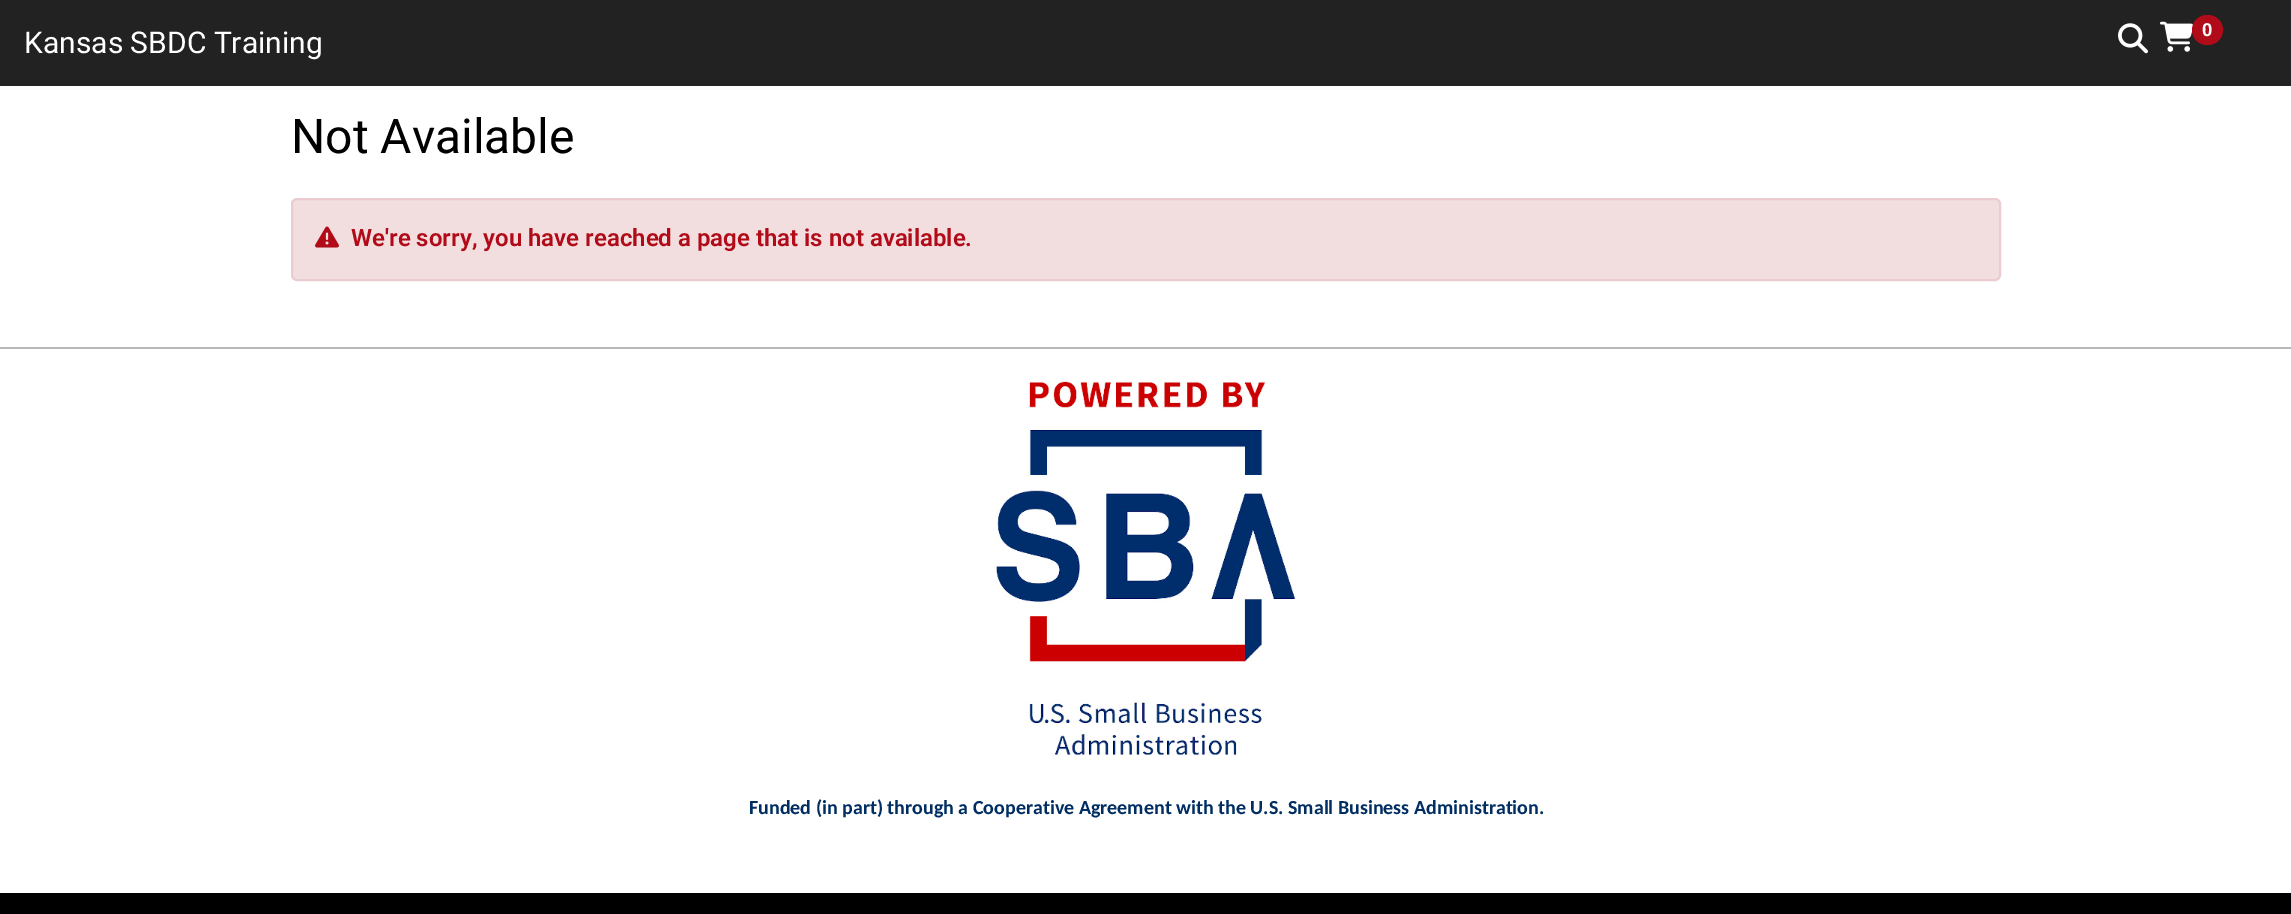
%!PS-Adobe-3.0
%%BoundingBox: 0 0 2291 914
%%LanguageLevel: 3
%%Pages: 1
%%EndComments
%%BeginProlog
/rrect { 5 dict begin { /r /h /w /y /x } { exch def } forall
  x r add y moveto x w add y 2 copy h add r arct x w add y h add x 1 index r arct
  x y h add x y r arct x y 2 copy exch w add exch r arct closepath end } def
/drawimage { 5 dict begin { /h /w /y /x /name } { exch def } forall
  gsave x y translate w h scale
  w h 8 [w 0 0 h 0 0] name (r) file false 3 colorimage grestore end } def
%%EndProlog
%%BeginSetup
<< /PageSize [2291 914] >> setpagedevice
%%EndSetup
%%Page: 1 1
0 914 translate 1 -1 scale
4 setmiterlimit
1 setgray
0 0 2291 914 rectfill
0.133 setgray
0 0 2291 86 rectfill
(images/1.raw) 2118 23 30 31 drawimage
(images/2.raw) 2160 21 34 31 drawimage
0.694 0.043 0.098 setrgbcolor
2192 15 31 30 15 rrect fill
0.949 0.871 0.871 setrgbcolor
292 199 1708 81 5 rrect gsave fill grestore
0.922 0.8 0.82 setrgbcolor
2 setlinewidth
stroke
(images/3.raw) 315 226 24 22 drawimage
0.718 0.714 0.722 setrgbcolor
0 347 2291 2 rectfill
(images/4.raw) 996 381 300 375 drawimage
0 setgray
0 893 2291 21 rectfill
/Roboto-Regular [30 0 0 -30 0 0] selectfont
1 setgray
24 53 moveto (Kansas SBDC Training) show
/Roboto-Bold [18 0 0 -18 0 0] selectfont
2202 36 moveto (0) show
/Roboto-Regular [48 0 0 -48 0 0] selectfont
0 setgray
291 153 moveto (Not Available) show
/Roboto-SemiBold [24 0 0 -24 0 0] selectfont
0.694 0.043 0.098 setrgbcolor
351 246 moveto (We're sorry, you have reached a page that is not available.) show
/Carlito-Bold [20 0 0 -20 0 0] selectfont
0 0.176 0.384 setrgbcolor
749 814 moveto (Funded \(in part\) through a Cooperative Agreement with the U.S. Small Business Administration.) show
showpage
%%EOF
